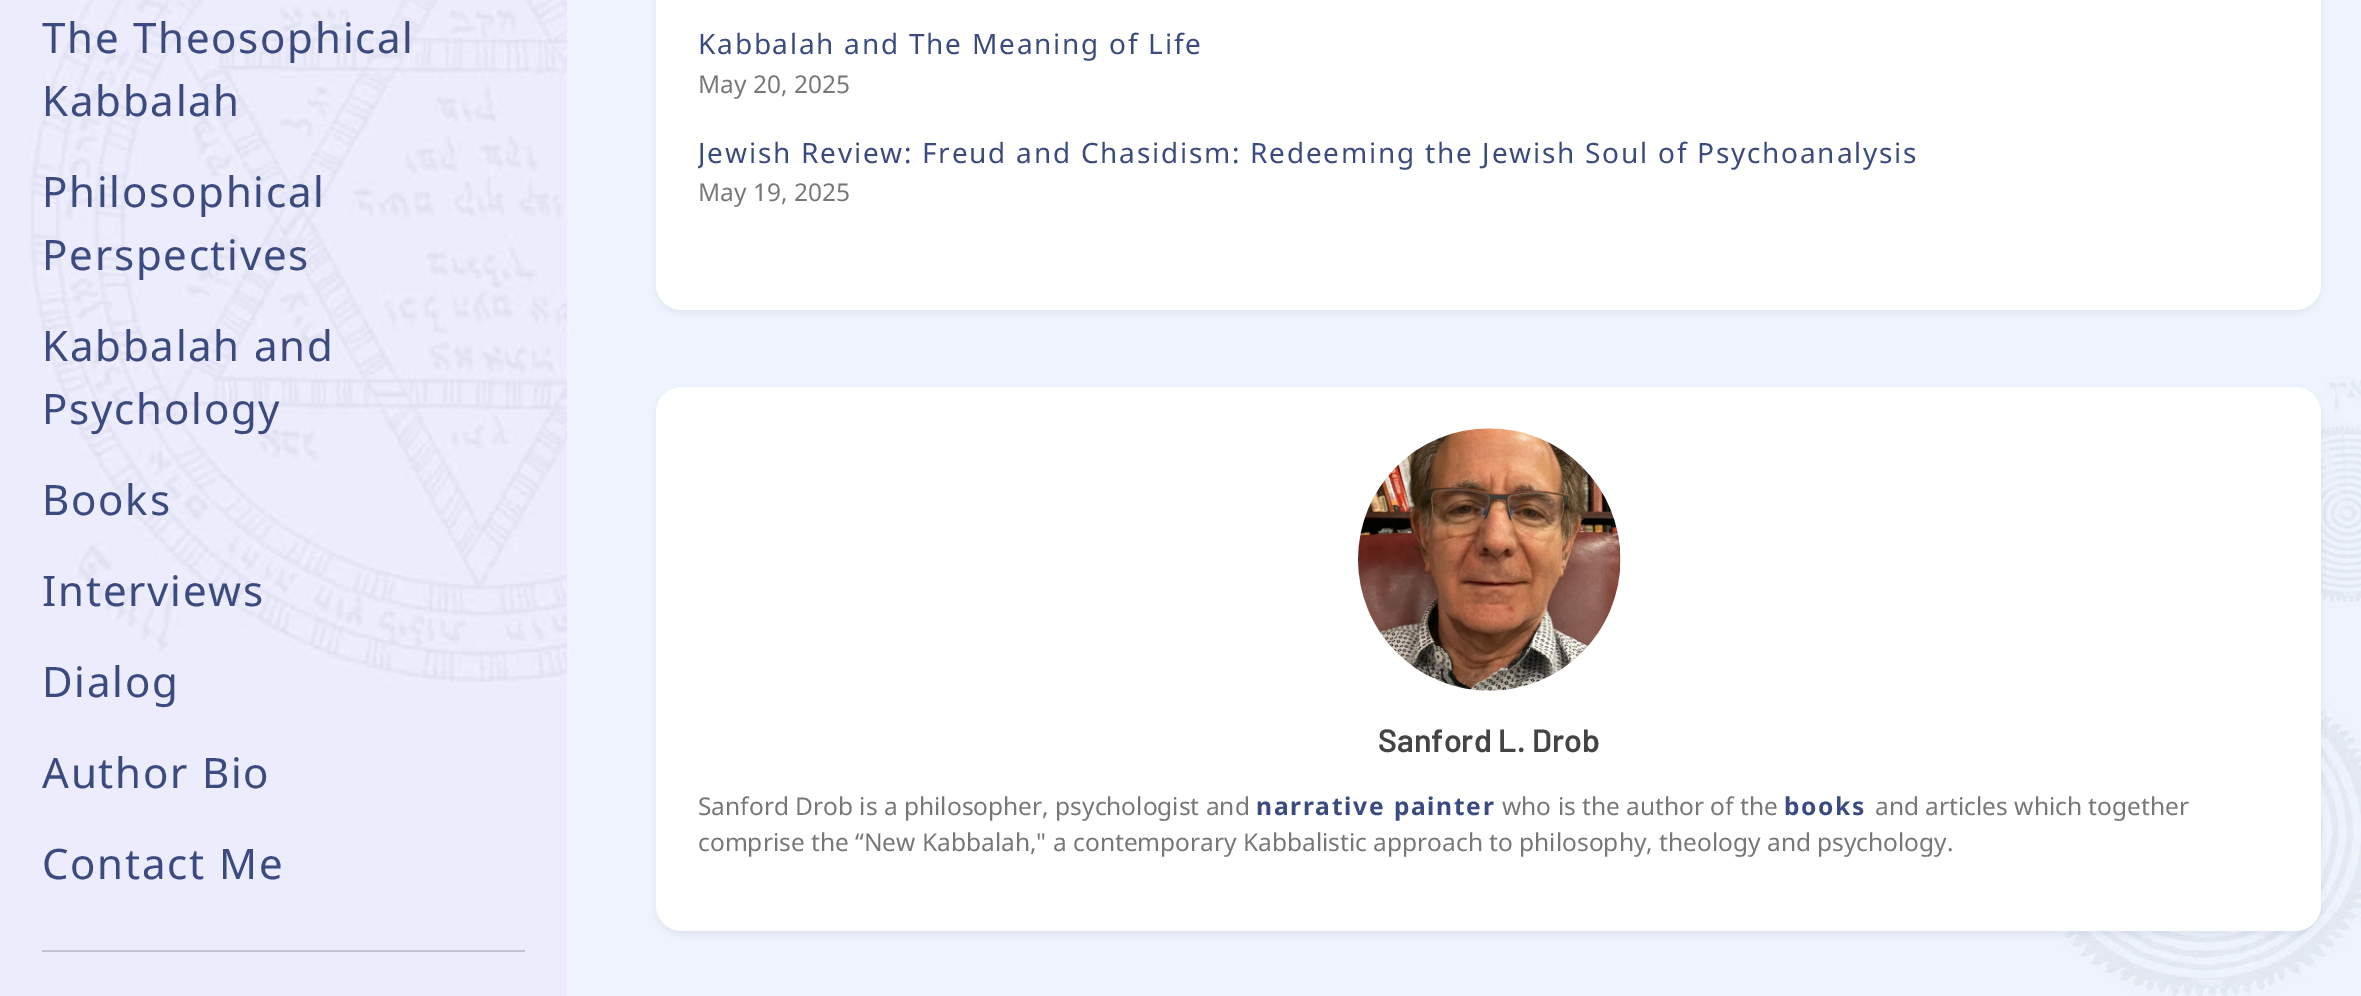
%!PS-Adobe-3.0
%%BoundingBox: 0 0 2361 996
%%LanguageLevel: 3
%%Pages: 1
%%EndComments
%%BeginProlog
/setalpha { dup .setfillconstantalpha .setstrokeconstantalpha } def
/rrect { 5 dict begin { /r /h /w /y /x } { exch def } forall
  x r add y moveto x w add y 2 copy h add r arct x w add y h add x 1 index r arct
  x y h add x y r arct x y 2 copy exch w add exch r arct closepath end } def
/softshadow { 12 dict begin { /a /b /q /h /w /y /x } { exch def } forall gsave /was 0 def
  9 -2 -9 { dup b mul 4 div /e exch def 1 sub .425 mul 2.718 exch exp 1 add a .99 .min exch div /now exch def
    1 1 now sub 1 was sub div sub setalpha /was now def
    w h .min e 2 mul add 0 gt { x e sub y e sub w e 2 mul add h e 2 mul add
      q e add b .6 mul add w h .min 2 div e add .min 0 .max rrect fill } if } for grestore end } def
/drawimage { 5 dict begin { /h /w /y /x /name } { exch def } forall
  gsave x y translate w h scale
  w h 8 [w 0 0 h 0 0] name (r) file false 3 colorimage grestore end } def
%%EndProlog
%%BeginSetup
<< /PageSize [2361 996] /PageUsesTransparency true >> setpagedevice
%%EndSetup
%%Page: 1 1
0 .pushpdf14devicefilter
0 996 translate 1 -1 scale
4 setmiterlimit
0.937 0.953 0.996 setrgbcolor
0 0 2361 996 rectfill
0.929 0.925 0.992 setrgbcolor
0 0 567 996 rectfill
(images/1.raw) 30 0 537 682 drawimage
0.765 0.761 0.812 setrgbcolor
42 950 483 2 rectfill
0.318 0.345 0.451 setrgbcolor
656 -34 1665 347 26 2.5 0.08 softshadow
1 setgray
656 -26 1665 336 26 rrect fill
(images/3.raw) 2021 377 340 619 drawimage
0.318 0.345 0.451 setrgbcolor
656 390 1665 545 26 2.5 0.08 softshadow
1 setgray
656 387 1665 544 26 rrect fill
(images/2.raw) 1358 428 263 263 drawimage
/NotoSans-Regular [42 0 0 -42 0 0] selectfont
0.231 0.294 0.498 setrgbcolor
42 53 moveto 1.75 0 (The Theosophical) ashow
42 116 moveto 1.75 0 (Kabbalah) ashow
42 207 moveto 1.75 0 (Philosophical) ashow
42 270 moveto 1.75 0 (Perspectives) ashow
42 361 moveto 1.75 0 (Kabbalah and) ashow
42 424 moveto 1.75 0 (Psychology) ashow
42 515 moveto 1.75 0 (Books) ashow
42 606 moveto 1.75 0 (Interviews) ashow
42 697 moveto 1.75 0 (Dialog) ashow
42 788 moveto 1.75 0 (Author Bio) ashow
42 879 moveto 1.75 0 (Contact Me) ashow
/NotoSans-Regular [28 0 0 -28 0 0] selectfont
698 54 moveto 1.75 0 (Kabbalah and The Meaning of Life) ashow
/NotoSans-Regular [24.5 0 0 -24.5 0 0] selectfont
0.467 setgray
698 93 moveto (May 20, 2025) show
gsave
698 131 1581 42 rectclip
/NotoSans-Regular [28 0 0 -28 0 0] selectfont
0.231 0.294 0.498 setrgbcolor
698 163 moveto 1.75 0 (Jewish Review: Freud and Chasidism: Redeeming the Jewish Soul of Psychoanalysis) ashow
grestore
698 201 moveto (May 19, 2025) show
/Barlow-SemiBold [32.25 0 0 -32.25 0 0] selectfont
0.267 setgray
1378 752 moveto (Sanford L. Drob) show
/NotoSans-Regular [24.5 0 0 -24.5 0 0] selectfont
0.467 setgray
698 815 moveto (Sanford Drob is a philosopher, psychologist and) show
/NotoSans-Bold [24.5 0 0 -24.5 0 0] selectfont
0.231 0.294 0.498 setrgbcolor
1256 815 moveto 1.75 0 (narrative painter) ashow
/NotoSans-Regular [24.5 0 0 -24.5 0 0] selectfont
0.467 setgray
1502 815 moveto (who is the author of the) show
/NotoSans-Bold [24.5 0 0 -24.5 0 0] selectfont
0.231 0.294 0.498 setrgbcolor
1784 815 moveto 1.75 0 (books) ashow
/NotoSans-Regular [24.5 0 0 -24.5 0 0] selectfont
0.467 setgray
1875 815 moveto (and articles which together) show
698 851 moveto (comprise the “New Kabbalah," a contemporary Kabbalistic approach to philosophy, theology and psychology.) show
.poppdf14devicefilter showpage
%%EOF
